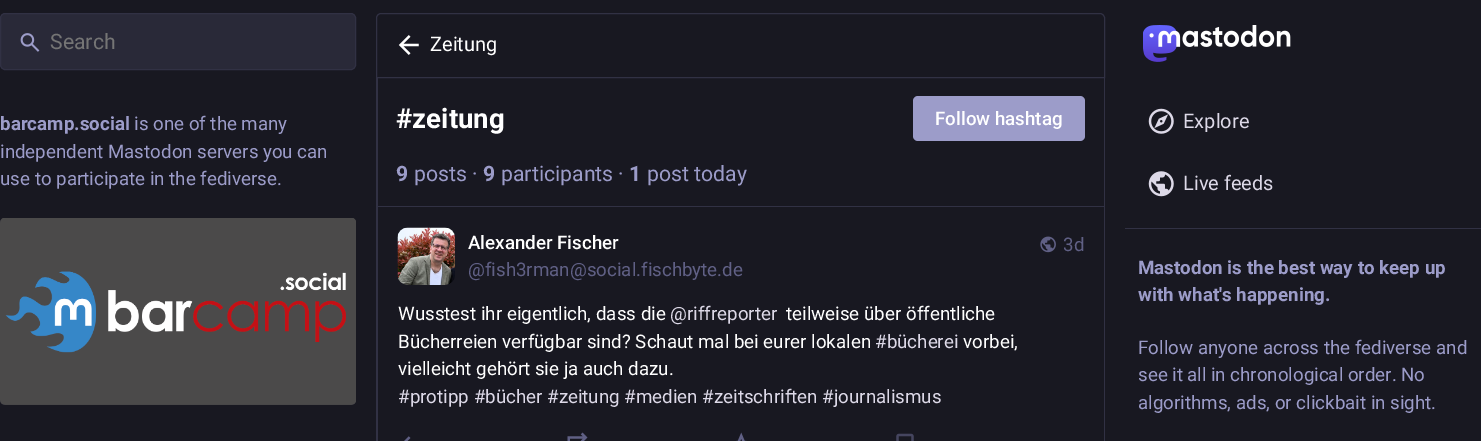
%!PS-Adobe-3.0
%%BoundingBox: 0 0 1481 441
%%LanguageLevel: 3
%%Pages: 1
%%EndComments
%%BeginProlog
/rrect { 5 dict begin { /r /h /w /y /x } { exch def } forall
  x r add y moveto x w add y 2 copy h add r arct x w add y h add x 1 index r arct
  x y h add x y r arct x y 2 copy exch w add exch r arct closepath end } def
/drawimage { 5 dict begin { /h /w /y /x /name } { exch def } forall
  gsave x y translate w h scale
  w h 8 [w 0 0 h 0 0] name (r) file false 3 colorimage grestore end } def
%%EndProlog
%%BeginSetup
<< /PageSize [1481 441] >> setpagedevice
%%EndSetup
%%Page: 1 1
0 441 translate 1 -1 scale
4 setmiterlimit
0.094 0.094 0.129 setrgbcolor
0 0 1481 441 rectfill
0.161 0.161 0.22 setrgbcolor
0.5 13.5 355 56 4.5 rrect gsave fill grestore
0.192 0.192 0.267 setrgbcolor
stroke
(images/1.raw) 20 33 20 19 drawimage
0.161 0.161 0.22 setrgbcolor
0 218 356 187 5 rrect fill
(images/2.raw) 0 218 356 187 drawimage
0.192 0.192 0.267 setrgbcolor
newpath 381 13.5 moveto 1100 13.5 lineto 1102.5 13.5 1104.5 15.5 1104.5 18 curveto 1104.5 77.5 lineto 376.5 77.5 lineto 376.5 18 lineto 376.5 15.5 378.5 13.5 381 13.5 curveto closepath stroke
(images/3.raw) 398 35 21 20 drawimage
newpath 376 78 moveto 1105 78 lineto 1105 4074 lineto 1105 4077 1103 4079 1100 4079 curveto 381 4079 lineto 378 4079 376 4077 376 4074 curveto closepath 378 78 moveto 1104 78 lineto 1104 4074 lineto 1104 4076 1102 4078 1100 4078 curveto 381 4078 lineto 379 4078 378 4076 378 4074 curveto closepath eofill
378 206 726 1 rectfill
0.612 0.612 0.788 setrgbcolor
913 96 172 45 5 rrect fill
(images/4.raw) 397 227 58 58 drawimage
(images/5.raw) 1040 236 16 17 drawimage
(images/6.raw) 404 436 7 5 drawimage
(images/7.raw) 567 432 21 9 drawimage
(images/8.raw) 736 432 11 9 drawimage
(images/9.raw) 896 433 18 8 drawimage
(images/10.raw) 1143 25 148 37 drawimage
(images/11.raw) 1148 108 26 26 drawimage
(images/12.raw) 1148 171 26 26 drawimage
0.192 0.192 0.267 setrgbcolor
1125 228 356 1 rectfill
/Roboto-Regular [21.25 0 0 -21.25 0 0] selectfont
0.459 setgray
50 49 moveto (Search) show
/Roboto-Bold [18.75 0 0 -18.75 0 0] selectfont
0.612 0.612 0.788 setrgbcolor
0 130 moveto (barcamp.social) show
/Roboto-Regular [18.75 0 0 -18.75 0 0] selectfont
134 130 moveto (is one of the many) show
0 158 moveto (independent Mastodon servers you can) show
0 185 moveto (use to participate in the fediverse.) show
/Roboto-Regular [20 0 0 -20 0 0] selectfont
1 setgray
430 51 moveto (Zeitung) show
/Roboto-Bold [27.5 0 0 -27.5 0 0] selectfont
396 128 moveto (#zeitung) show
/Roboto-Medium [18.75 0 0 -18.75 0 0] selectfont
935 125 moveto (Follow hashtag) show
/Roboto-Bold [21.25 0 0 -21.25 0 0] selectfont
0.612 0.612 0.788 setrgbcolor
396 181 moveto (9) show
/Roboto-Regular [21.25 0 0 -21.25 0 0] selectfont
414 181 moveto (posts ·) show
/Roboto-Bold [21.25 0 0 -21.25 0 0] selectfont
483 181 moveto (9) show
/Roboto-Regular [21.25 0 0 -21.25 0 0] selectfont
501 181 moveto (participants ·) show
/Roboto-Bold [21.25 0 0 -21.25 0 0] selectfont
629 181 moveto (1) show
/Roboto-Regular [21.25 0 0 -21.25 0 0] selectfont
647 181 moveto (post today) show
/Roboto-Medium [18.75 0 0 -18.75 0 0] selectfont
1 setgray
468 249 moveto (Alexander Fischer) show
/Roboto-Regular [18.75 0 0 -18.75 0 0] selectfont
0.376 0.376 0.522 setrgbcolor
468 276 moveto (@fish3rman@social.fischbyte.de) show
1063 251 moveto (3d) show
1 setgray
398 320 moveto (Wusstest ihr eigentlich, dass die) show
0.867 0.851 0.91 setrgbcolor
670 320 moveto (@riffreporter) show
1 setgray
786 320 moveto (teilweise über öffentliche) show
398 348 moveto (Bücherreien verfügbar sind? Schaut mal bei eurer lokalen) show
0.867 0.851 0.91 setrgbcolor
875 348 moveto (#bücherei) show
1 setgray
963 348 moveto (vorbei,) show
398 375 moveto (vielleicht gehört sie ja auch dazu.) show
0.867 0.851 0.91 setrgbcolor
398 403 moveto (#protipp #bücher #zeitung #medien #zeitschriften #journalismus) show
/Roboto-Regular [20 0 0 -20 0 0] selectfont
1183 128 moveto (Explore) show
1183 190 moveto (Live feeds) show
/Roboto-Bold [18.75 0 0 -18.75 0 0] selectfont
0.612 0.612 0.788 setrgbcolor
1138 274 moveto (Mastodon is the best way to keep up) show
1138 301 moveto (with what's happening.) show
/Roboto-Regular [18.75 0 0 -18.75 0 0] selectfont
1138 354 moveto (Follow anyone across the fediverse and) show
1138 381 moveto -0.25 0 32 (see it all in chronological order. No) widthshow
1138 409 moveto (algorithms, ads, or clickbait in sight.) show
showpage
%%EOF
